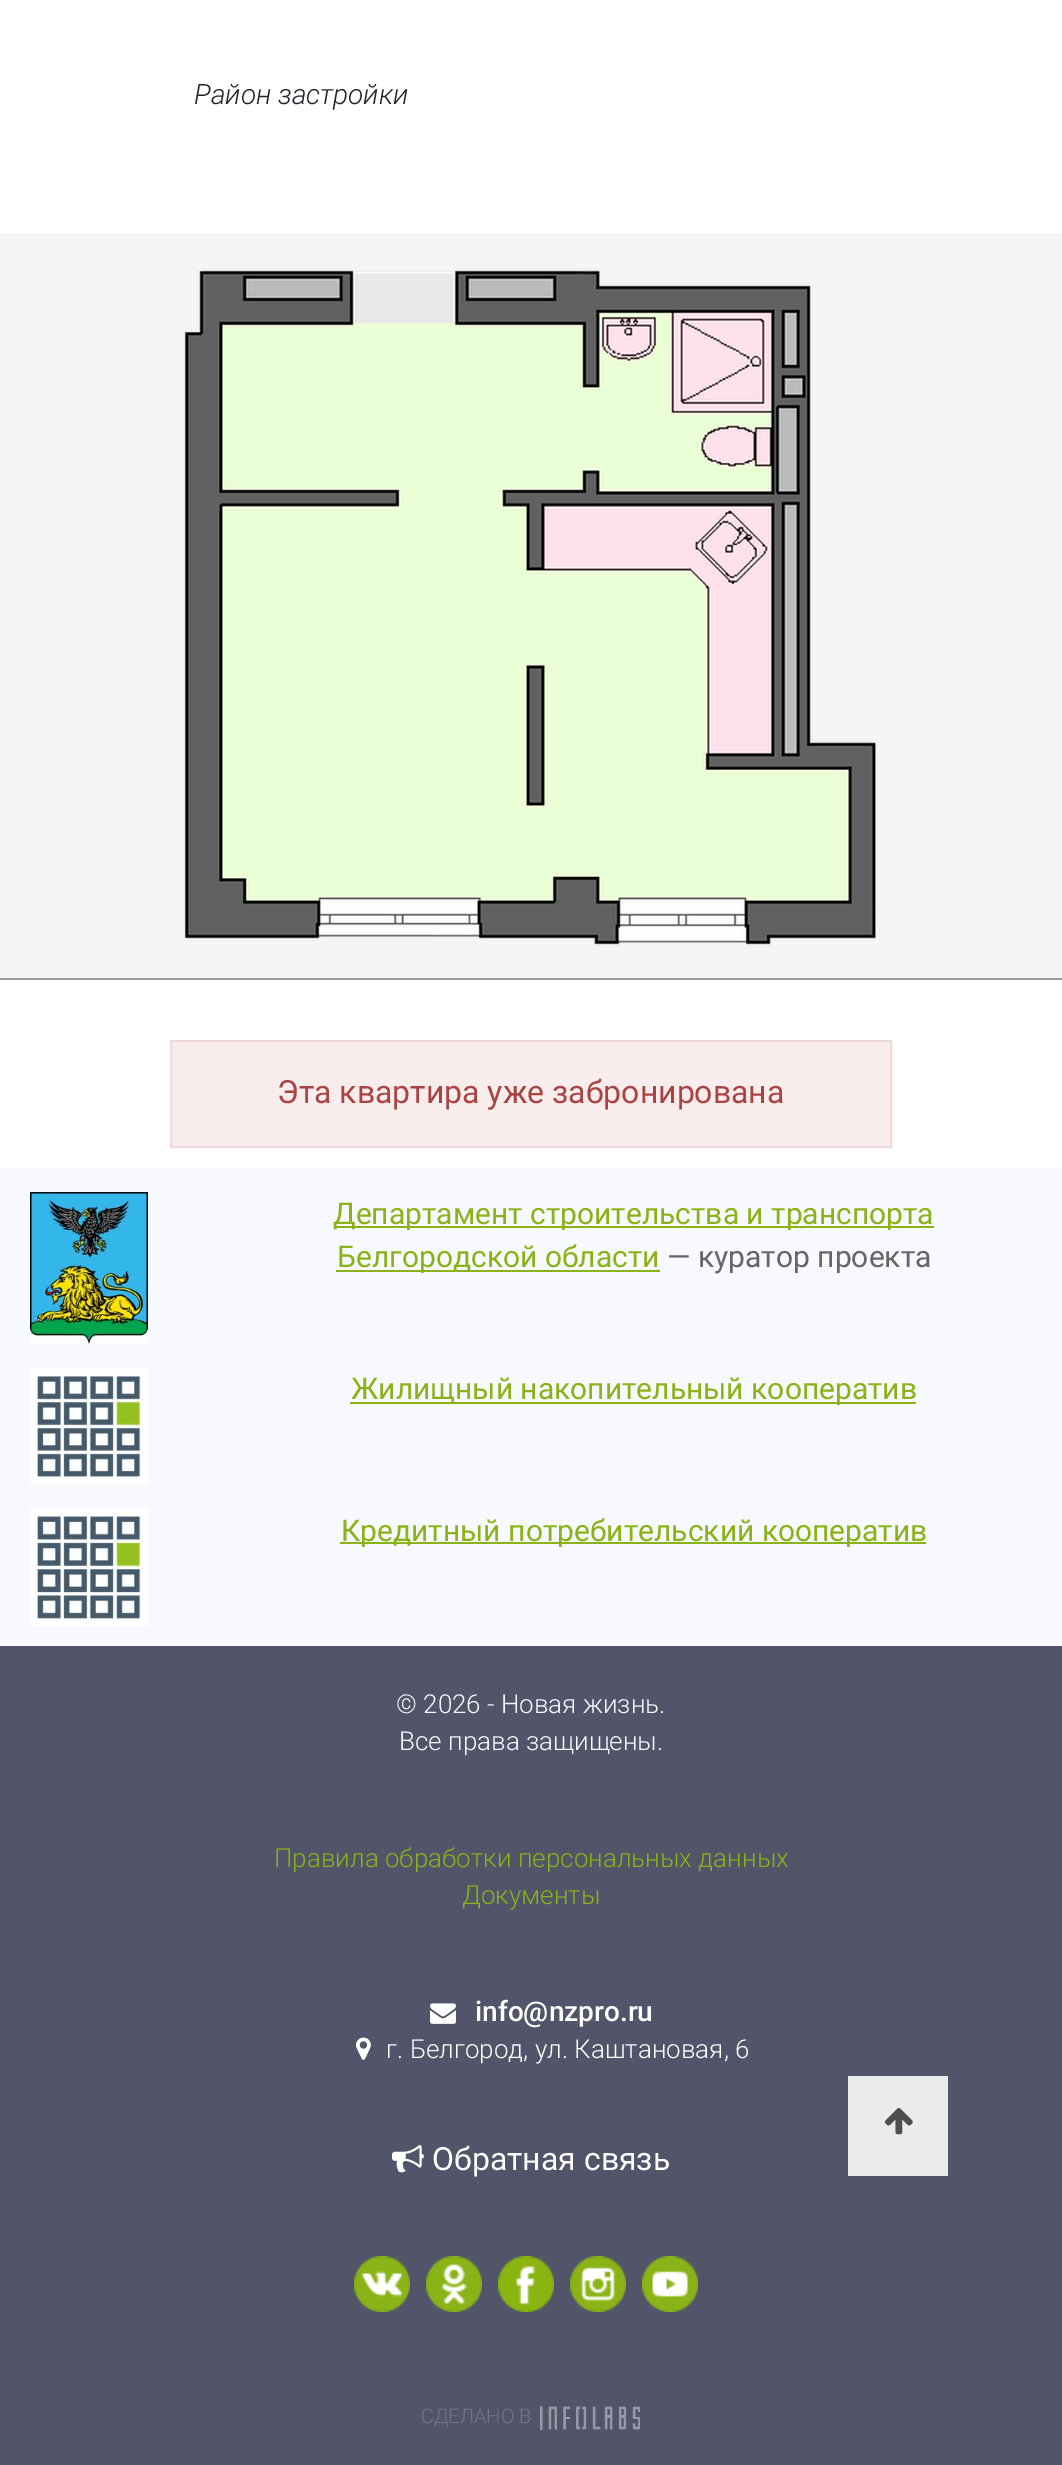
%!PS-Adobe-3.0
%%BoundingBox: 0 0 1062 2465
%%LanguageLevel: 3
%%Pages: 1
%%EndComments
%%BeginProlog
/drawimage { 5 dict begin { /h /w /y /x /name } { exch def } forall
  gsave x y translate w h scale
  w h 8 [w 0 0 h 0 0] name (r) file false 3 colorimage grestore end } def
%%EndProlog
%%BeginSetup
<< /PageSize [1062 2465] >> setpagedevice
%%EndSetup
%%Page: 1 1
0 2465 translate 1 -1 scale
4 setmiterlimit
1 setgray
0 0 1062 2465 rectfill
0.961 setgray
0 234 1062 744 rectfill
(images/1.raw) 184 268 692 679 drawimage
0.6 setgray
0 978 1062 2 rectfill
0.973 0.925 0.925 setrgbcolor
newpath 171 1041 moveto 891 1041 lineto 891 1147 lineto 171 1147 lineto closepath gsave fill grestore
0.941 0.851 0.863 setrgbcolor
2 setlinewidth
stroke
0.973 0.973 1 setrgbcolor
0 1168 1062 478 rectfill
(images/2.raw) 30 1192 118 152 drawimage
0.537 0.702 0.09 setrgbcolor
334 1226 600 2 rectfill
336 1270 324 2 rectfill
(images/3.raw) 30 1368 118 116 drawimage
350 1402 566 2 rectfill
(images/4.raw) 30 1508 118 118 drawimage
340 1542 586 2 rectfill
0.322 0.329 0.412 setrgbcolor
0 1646 1062 819 rectfill
(images/5.raw) 430 2003 26 21 drawimage
(images/6.raw) 356 2037 15 23 drawimage
(images/7.raw) 392 2144 32 29 drawimage
(images/8.raw) 354 2256 56 56 drawimage
(images/9.raw) 426 2256 56 56 drawimage
(images/10.raw) 498 2256 56 56 drawimage
(images/11.raw) 570 2256 56 56 drawimage
(images/12.raw) 642 2256 56 56 drawimage
(images/13.raw) 540 2406 100 24 drawimage
0.918 0.922 0.922 setrgbcolor
848 2076 100 100 rectfill
(images/14.raw) 885 2108 28 27 drawimage
/Roboto-LightItalic [28 0 0 -28 0 0] selectfont
0.122 0.145 0.169 setrgbcolor
194 104 moveto (Район застройки) show
/Roboto-Regular [32 0 0 -32 0 0] selectfont
0.663 0.267 0.259 setrgbcolor
277 1103 moveto (Эта квартира уже забронирована) show
/Roboto-Regular [30 0 0 -30 0 0] selectfont
0.537 0.702 0.09 setrgbcolor
333 1224 moveto (Департамент строительства и транспорта) show
337 1267 moveto (Белгородской области) show
0.4 setgray
667 1267 moveto (— куратор проекта) show
0.537 0.702 0.09 setrgbcolor
351 1399 moveto (Жилищный накопительный кооператив) show
341 1541 moveto (Кредитный потребительский кооператив) show
/Roboto-Light [26 0 0 -26 0 0] selectfont
0.973 0.973 1 setrgbcolor
396 1713 moveto (© 2026 - Новая жизнь.) show
399 1750 moveto (Все права защищены.) show
0.537 0.702 0.09 setrgbcolor
274 1867 moveto (Правила обработки персональных данных) show
462 1904 moveto (Документы) show
/Roboto-Medium [28 0 0 -28 0 0] selectfont
1 setgray
475 2021 moveto (info@nzpro.ru) show
/Roboto-Light [26 0 0 -26 0 0] selectfont
386 2058 moveto (г. Белгород, ул. Каштановая, 6) show
/Roboto-Regular [32 0 0 -32 0 0] selectfont
432 2170 moveto (Обратная связь) show
/Roboto-Light [20 0 0 -20 0 0] selectfont
0.459 0.463 0.514 setrgbcolor
421 2423 moveto (СДЕЛАНО В) show
showpage
%%EOF
